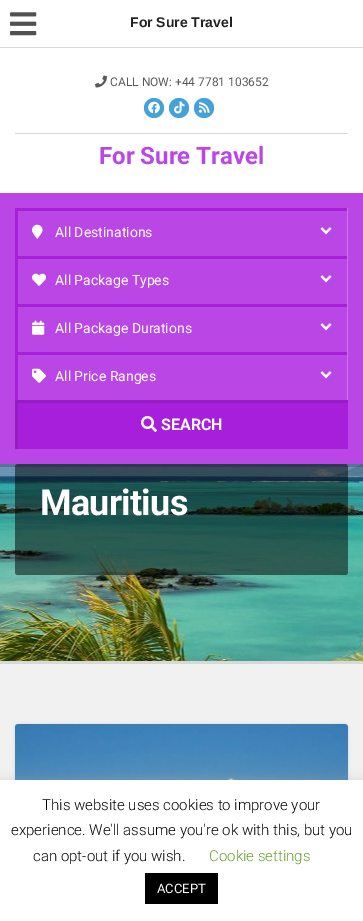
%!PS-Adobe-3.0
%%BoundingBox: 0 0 363 921
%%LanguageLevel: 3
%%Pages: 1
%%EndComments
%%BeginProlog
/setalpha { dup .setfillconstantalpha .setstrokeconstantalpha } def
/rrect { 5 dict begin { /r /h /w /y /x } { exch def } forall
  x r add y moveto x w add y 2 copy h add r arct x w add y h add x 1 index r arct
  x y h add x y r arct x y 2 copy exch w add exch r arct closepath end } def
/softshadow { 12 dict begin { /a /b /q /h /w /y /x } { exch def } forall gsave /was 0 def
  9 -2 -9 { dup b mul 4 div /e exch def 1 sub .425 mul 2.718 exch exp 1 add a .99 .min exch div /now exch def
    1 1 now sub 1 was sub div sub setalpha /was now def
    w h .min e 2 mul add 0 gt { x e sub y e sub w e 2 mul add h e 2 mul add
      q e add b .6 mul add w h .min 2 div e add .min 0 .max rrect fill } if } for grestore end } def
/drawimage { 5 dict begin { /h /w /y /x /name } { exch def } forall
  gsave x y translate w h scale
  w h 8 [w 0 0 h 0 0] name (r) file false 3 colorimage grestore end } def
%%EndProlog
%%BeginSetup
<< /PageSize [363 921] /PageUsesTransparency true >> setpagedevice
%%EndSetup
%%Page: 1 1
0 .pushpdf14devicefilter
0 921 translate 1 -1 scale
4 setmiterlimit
0.945 setgray
0 0 363 921 rectfill
1 setgray
0 0 363 47 rectfill
0.851 setgray
0 47 363 1 rectfill
(images/1.raw) 10 12 27 24 drawimage
1 setgray
0 48 363 145 rectfill
0.847 setgray
15 133 333 1 rectfill
(images/2.raw) 95 75 12 13 drawimage
0.267 0.635 0.847 setrgbcolor
newpath 154 108 10 0 360 arc closepath fill
(images/3.raw) 148 101 12 13 drawimage
newpath 179 108 10 0 360 arc closepath fill
(images/4.raw) 174 101 11 13 drawimage
newpath 204 108 10 0 360 arc closepath fill
(images/5.raw) 199 102 11 11 drawimage
(images/12.raw) 0 464 363 197 drawimage
0.5 setalpha
0 setgray
15 464 333 111 3 rrect fill
0.2 setalpha
0 464 363 3 rectfill
1 setalpha
0.729 0.278 0.898 setrgbcolor
0 193 363 271 rectfill
(images/6.raw) 32 224 11 15 drawimage
gsave
15 208 332 48 rectclip
0.655 0.122 0.855 setrgbcolor
newpath -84 109 moveto 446 109 lineto 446 355 lineto -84 355 lineto closepath 18 211 moveto 350 211 lineto 350 259 lineto 18 259 lineto closepath eofill
grestore
0.796 0.455 0.922 setrgbcolor
347 208 1 192 rectfill
(images/7.raw) 320 227 12 8 drawimage
(images/8.raw) 32 273 14 13 drawimage
gsave
15 256 332 48 rectclip
0.655 0.122 0.855 setrgbcolor
newpath -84 157 moveto 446 157 lineto 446 403 lineto -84 403 lineto closepath 18 259 moveto 350 259 lineto 350 307 lineto 18 307 lineto closepath eofill
grestore
(images/7.raw) 320 275 12 8 drawimage
(images/9.raw) 32 320 13 15 drawimage
gsave
15 304 332 48 rectclip
0.655 0.122 0.855 setrgbcolor
newpath -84 205 moveto 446 205 lineto 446 451 lineto -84 451 lineto closepath 18 307 moveto 350 307 lineto 350 355 lineto 18 355 lineto closepath eofill
grestore
(images/7.raw) 320 323 12 8 drawimage
(images/10.raw) 32 368 14 15 drawimage
gsave
15 352 332 48 rectclip
0.655 0.122 0.855 setrgbcolor
newpath -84 253 moveto 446 253 lineto 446 499 lineto -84 499 lineto closepath 18 355 moveto 350 355 lineto 350 403 lineto 18 403 lineto closepath eofill
grestore
(images/7.raw) 320 371 12 8 drawimage
0.655 0.122 0.855 setrgbcolor
18 403 330 46 rectfill
gsave
15 400 333 49 rectclip
0.588 0.11 0.769 setrgbcolor
newpath -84 301 moveto 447 301 lineto 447 548 lineto -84 548 lineto closepath 18 403 moveto 351 403 lineto 351 452 lineto 18 452 lineto closepath eofill
grestore
(images/11.raw) 141 416 16 16 drawimage
0.847 setgray
0 661 363 3 rectfill
0 setgray
15 724 333 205 3 1.5 0.1 softshadow
(images/13.raw) 15 724 333 56 drawimage
0.675 0.671 0.671 setrgbcolor
0 779 363 141 0 5 0.3 softshadow
1 setgray
0 780 363 141 rectfill
0 setgray
145 873 73 31 rectfill
/LiberationSans-Bold [14 0 0 -14 0 0] selectfont
0.133 setgray
130 27 moveto (For Sure Travel) show
/Roboto-Regular [12 0 0 -12 0 0] selectfont
0.353 setgray
110 86 moveto (CALL NOW: +44 7781 103652) show
/Roboto-Bold [24 0 0 -24 0 0] selectfont
0.729 0.278 0.898 setrgbcolor
99 164 moveto (For Sure Travel) show
/Roboto-Regular [14 0 0 -14 0 0] selectfont
1 setgray
55 237 moveto (All Destinations) show
55 285 moveto (All Package Types) show
55 333 moveto (All Package Durations) show
55 381 moveto (All Price Ranges) show
/Roboto-Bold [16 0 0 -16 0 0] selectfont
161 430 moveto (SEARCH) show
/Roboto-Bold [36 0 0 -36 0 0] selectfont
40 515 moveto -0.75 0 (Mauritius) ashow
/Roboto-Light [15 0 0 -15 0 0] selectfont
0 setgray
42 810 moveto (This website uses cookies to improve your) show
11 835 moveto (experience. We'll assume you're ok with this, but you) show
33 861 moveto (can opt-out if you wish.) show
0.384 0.639 0.161 setrgbcolor
209 861 moveto (Cookie settings) show
/Roboto-Regular [13 0 0 -13 0 0] selectfont
1 setgray
157 893 moveto (ACCEPT) show
.poppdf14devicefilter showpage
%%EOF
